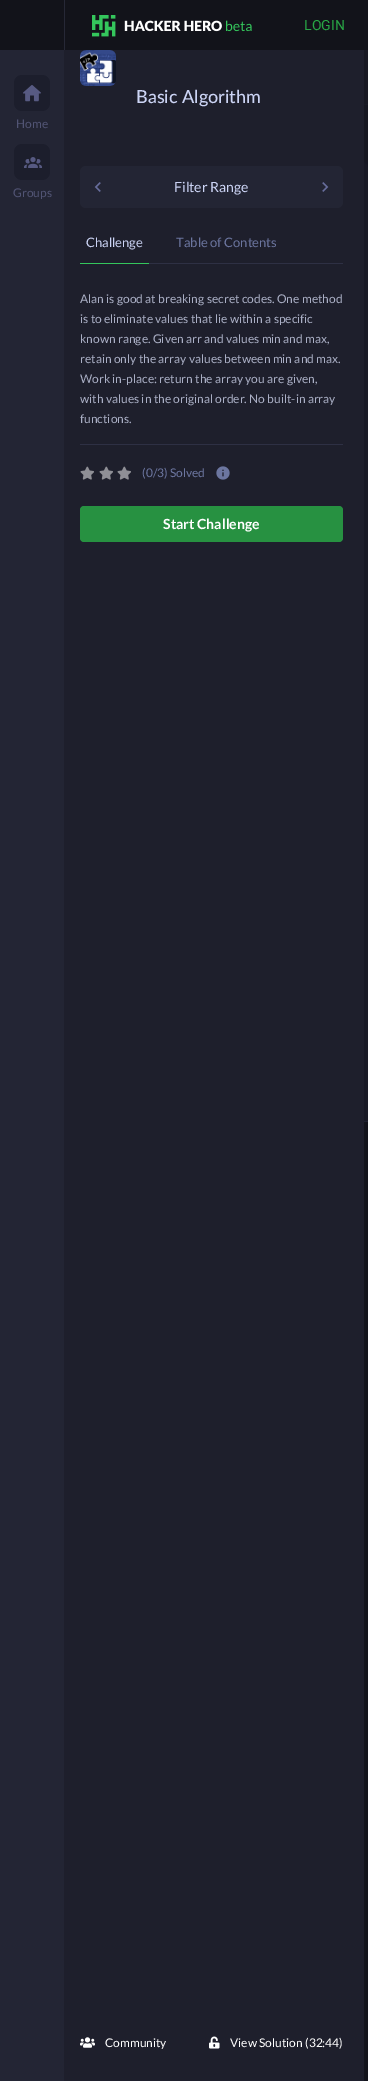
%!PS-Adobe-3.0
%%BoundingBox: 0 0 368 2081
%%LanguageLevel: 3
%%Pages: 1
%%EndComments
%%BeginProlog
/setalpha { dup .setfillconstantalpha .setstrokeconstantalpha } def
/rrect { 5 dict begin { /r /h /w /y /x } { exch def } forall
  x r add y moveto x w add y 2 copy h add r arct x w add y h add x 1 index r arct
  x y h add x y r arct x y 2 copy exch w add exch r arct closepath end } def
/softshadow { 12 dict begin { /a /b /q /h /w /y /x } { exch def } forall gsave /was 0 def
  9 -2 -9 { dup b mul 4 div /e exch def 1 sub .425 mul 2.718 exch exp 1 add a .99 .min exch div /now exch def
    1 1 now sub 1 was sub div sub setalpha /was now def
    w h .min e 2 mul add 0 gt { x e sub y e sub w e 2 mul add h e 2 mul add
      q e add b .6 mul add w h .min 2 div e add .min 0 .max rrect fill } if } for grestore end } def
/drawimage { 5 dict begin { /h /w /y /x /name } { exch def } forall
  gsave x y translate w h scale
  w h 8 [w 0 0 h 0 0] name (r) file false 3 colorimage grestore end } def
%%EndProlog
%%BeginSetup
<< /PageSize [368 2081] /PageUsesTransparency true >> setpagedevice
%%EndSetup
%%Page: 1 1
0 .pushpdf14devicefilter
0 2081 translate 1 -1 scale
4 setmiterlimit
0.059 0.063 0.086 setrgbcolor
0 0 368 2081 rectfill
0.094 0.098 0.141 setrgbcolor
0 161 368 1920 8 rrect fill
0.7 setalpha
0.098 0.102 0.161 setrgbcolor
364 161 4 960 rectfill
1 setalpha
0.149 0.157 0.227 setrgbcolor
364 1121 4 1 rectfill
0.071 0.075 0.102 setrgbcolor
364 1122 4 959 rectfill
0.094 0.098 0.141 setrgbcolor
364 50 4 54 rectfill
0.106 0.11 0.161 setrgbcolor
364 104 4 1 rectfill
0.086 0.09 0.129 setrgbcolor
364 105 4 56 rectfill
0.082 0.086 0.122 setrgbcolor
65 50 300 2031 0 4.5 0.73 softshadow
0.071 0.075 0.102 setrgbcolor
0 0 368 50 rectfill
0.149 0.157 0.212 setrgbcolor
64 0 1 50 rectfill
(images/1.raw) 92 15 160 22 drawimage
0.137 0.145 0.204 setrgbcolor
0 50 64 2031 rectfill
0.11 0.118 0.173 setrgbcolor
14 75 36 36 8 rrect fill
(images/2.raw) 23 85 18 17 drawimage
14 144 36 36 8 rrect fill
(images/3.raw) 24 157 18 11 drawimage
0.118 0.122 0.173 setrgbcolor
64 50 300 2031 rectfill
(images/4.raw) 80 50 36 36 drawimage
0.137 0.145 0.204 setrgbcolor
80 166 263 42 6 rrect fill
(images/5.raw) 94 182 7 10 drawimage
(images/6.raw) 322 182 7 10 drawimage
0.18 0.188 0.267 setrgbcolor
149 263 194 1 rectfill
0.204 0.776 0.361 setrgbcolor
80 263 69 1 rectfill
0.18 0.188 0.267 setrgbcolor
80 444 263 1 rectfill
(images/7.raw) 80 466 14 14 drawimage
(images/7.raw) 99 466 14 14 drawimage
(images/7.raw) 117 466 14 14 drawimage
(images/8.raw) 216 466 14 14 drawimage
0.153 0.569 0.255 setrgbcolor
80 506 263 36 4 rrect fill
(images/9.raw) 80 2037 15 11 drawimage
(images/10.raw) 209 2036 11 13 drawimage
/Roboto-Regular [14 0 0 -14 0 0] selectfont
0.157 0.655 0.271 setrgbcolor
304 30 moveto (LOGIN) show
/Lato-Regular [12 0 0 -12 0 0] selectfont
0.318 0.329 0.455 setrgbcolor
16 128 moveto (Home) show
13 197 moveto (Groups) show
/Lato-Medium [18 0 0 -18 0 0] selectfont
0.8 0.831 0.961 setrgbcolor
136 103 moveto (Basic Algorithm) show
/Lato-Regular [14 0 0 -14 0 0] selectfont
174 192 moveto (Filter Range) show
/Lato-Regular [13 0 0 -13 0 0] selectfont
86 247 moveto (Challenge) show
0.424 0.463 0.627 setrgbcolor
176 247 moveto (Table of Contents) show
/Lato-Regular [12 0 0 -12 0 0] selectfont
0.667 0.686 0.773 setrgbcolor
80 303 moveto (Alan is good at breaking secret codes. One method) show
80 323 moveto (is to eliminate values that lie within a specific) show
80 343 moveto (known range. Given arr and values min and max,) show
80 363 moveto (retain only the array values between min and max.) show
80 383 moveto (Work in-place: return the array you are given,) show
80 403 moveto (with values in the original order. No built-in array) show
80 423 moveto (functions.) show
0.424 0.463 0.627 setrgbcolor
142 477 moveto (\(0/3\) Solved) show
/Lato-Bold [14 0 0 -14 0 0] selectfont
1 setgray
163 529 moveto (Start Challenge) show
/Lato-Regular [12 0 0 -12 0 0] selectfont
105 2047 moveto (Community) show
230 2047 moveto (View Solution \(32:44\)) show
.poppdf14devicefilter showpage
%%EOF
